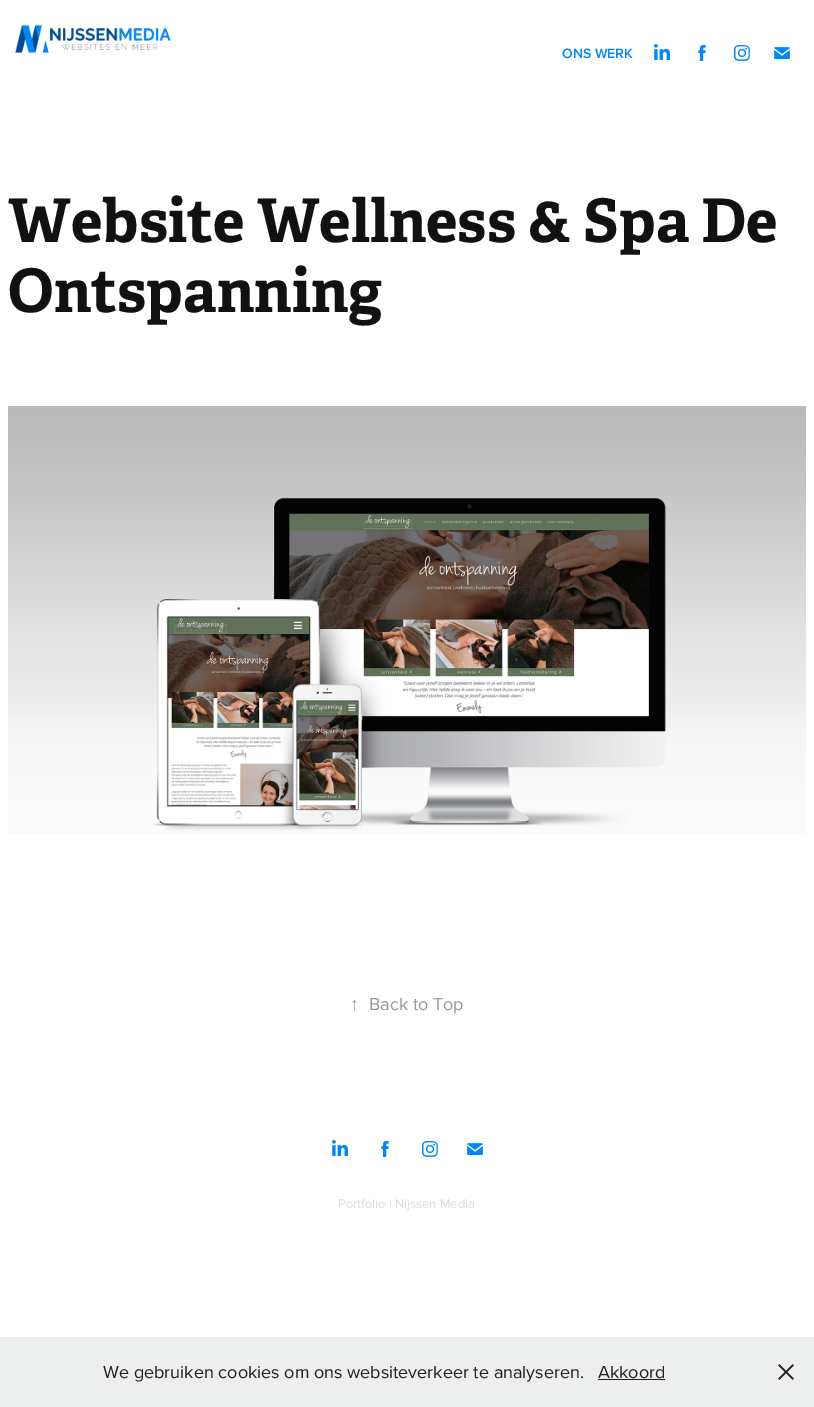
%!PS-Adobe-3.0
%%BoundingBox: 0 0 814 1407
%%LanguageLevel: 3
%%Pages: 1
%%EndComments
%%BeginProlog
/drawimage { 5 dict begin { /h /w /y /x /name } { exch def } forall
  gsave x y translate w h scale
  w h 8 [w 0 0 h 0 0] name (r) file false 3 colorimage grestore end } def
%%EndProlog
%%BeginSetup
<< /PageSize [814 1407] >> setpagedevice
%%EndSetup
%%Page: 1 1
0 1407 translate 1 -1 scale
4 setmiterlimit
1 setgray
0 0 814 1407 rectfill
(images/1.raw) 15 25 156 28 drawimage
(images/2.raw) 654 44 16 16 drawimage
(images/3.raw) 698 45 8 16 drawimage
(images/4.raw) 734 45 16 16 drawimage
(images/5.raw) 774 47 16 12 drawimage
(images/6.raw) 8 406 798 428 drawimage
(images/2.raw) 332 1140 16 16 drawimage
(images/3.raw) 381 1141 8 16 drawimage
(images/4.raw) 422 1141 16 16 drawimage
(images/5.raw) 467 1143 16 12 drawimage
0.929 0.933 0.933 setrgbcolor
0 1337 814 70 rectfill
0.129 setgray
598 1379 67 1 rectfill
(images/7.raw) 778 1364 16 16 drawimage
/ProximaNova-SemiBold [14 0 0 -14 0 0] selectfont
0 0.529 1 setrgbcolor
562 58 moveto (ONS WERK) show
/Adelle-Bold [60 0 0 -60 0 0] selectfont
0.067 setgray
8 242 moveto (Website Wellness & Spa De) show
8 312 moveto (Ontspanning) show
/LiberationSerif-Regular [18 0 0 -18 0 0] selectfont
0.6 setgray
350 1010 moveto (↑) show
/ProximaNova-Regular [18 0 0 -18 0 0] selectfont
369 1010 moveto (Back to Top) show
/ProximaNova-Regular [13 0 0 -13 0 0] selectfont
0.867 setgray
338 1208 moveto (Portfolio | Nijssen Media) show
/ProximaNova-Regular [18 0 0 -18 0 0] selectfont
0.129 setgray
103 1378 moveto (We gebruiken cookies om ons websiteverkeer te analyseren.) show
598 1378 moveto (Akkoord) show
showpage
%%EOF
